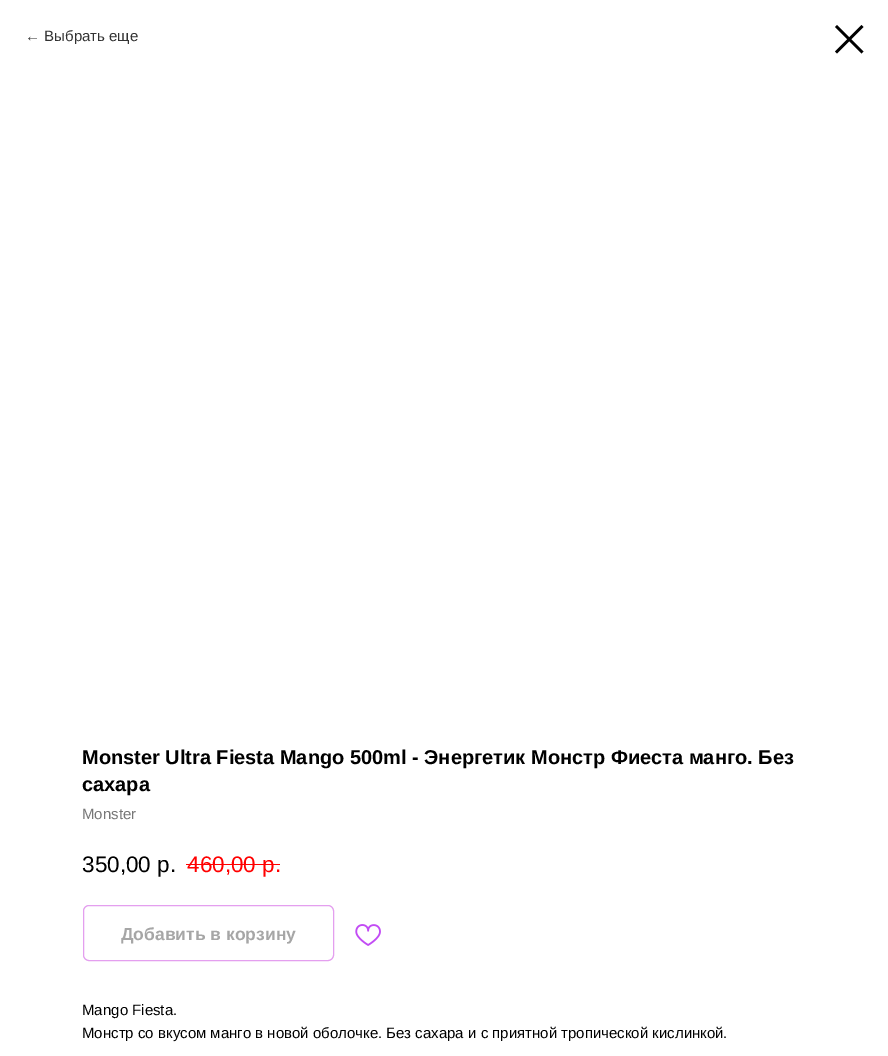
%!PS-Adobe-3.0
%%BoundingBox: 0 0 888 1056
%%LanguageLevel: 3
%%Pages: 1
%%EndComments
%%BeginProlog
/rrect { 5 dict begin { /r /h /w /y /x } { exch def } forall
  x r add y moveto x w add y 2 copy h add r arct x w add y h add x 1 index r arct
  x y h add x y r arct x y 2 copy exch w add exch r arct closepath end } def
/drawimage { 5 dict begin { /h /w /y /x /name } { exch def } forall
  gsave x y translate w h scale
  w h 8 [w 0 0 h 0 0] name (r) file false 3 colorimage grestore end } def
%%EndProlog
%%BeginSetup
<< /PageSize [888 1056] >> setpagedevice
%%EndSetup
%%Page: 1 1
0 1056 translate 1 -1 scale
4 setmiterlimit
1 setgray
0 0 888 1056 rectfill
0 setgray
newpath 835 27 moveto 837 25 lineto 863.5 51.5 lineto 861.5 53.5 lineto closepath eofill
newpath 861.5 25 moveto 863.5 27 lineto 837 53.5 lineto 835 51.5 lineto closepath eofill
1 0 0 setrgbcolor
186 864 94 1 rectfill
0.894 0.624 0.937 setrgbcolor
83.5 905.5 250 55 5.5 rrect stroke
(images/1.raw) 355 924 26 22 drawimage
/LiberationSans-Regular [15 0 0 -15 0 0] selectfont
0.2 setgray
25 41 moveto (← Выбрать еще) show
/LiberationSans-Bold [20 0 0 -20 0 0] selectfont
0 setgray
82 764 moveto (Monster Ultra Fiesta Mango 500ml - Энергетик Монстр Фиеста манго. Без) show
82 791 moveto (сахара) show
/LiberationSans-Regular [15 0 0 -15 0 0] selectfont
0.467 setgray
82 819 moveto (Monster) show
/LiberationSans-Regular [22.5 0 0 -22.5 0 0] selectfont
0 setgray
82 872 moveto (350,00 р.) show
1 0 0 setrgbcolor
187 872 moveto (460,00 р.) show
/LiberationSans-Bold [17.5 0 0 -17.5 0 0] selectfont
0.651 setgray
121 940 moveto (Добавить в корзину) show
/LiberationSans-Regular [15 0 0 -15 0 0] selectfont
0 setgray
82 1015 moveto (Mango Fiesta.) show
82 1038 moveto (Монстр со вкусом манго в новой оболочке. Без сахара и с приятной тропической кислинкой.) show
showpage
%%EOF
